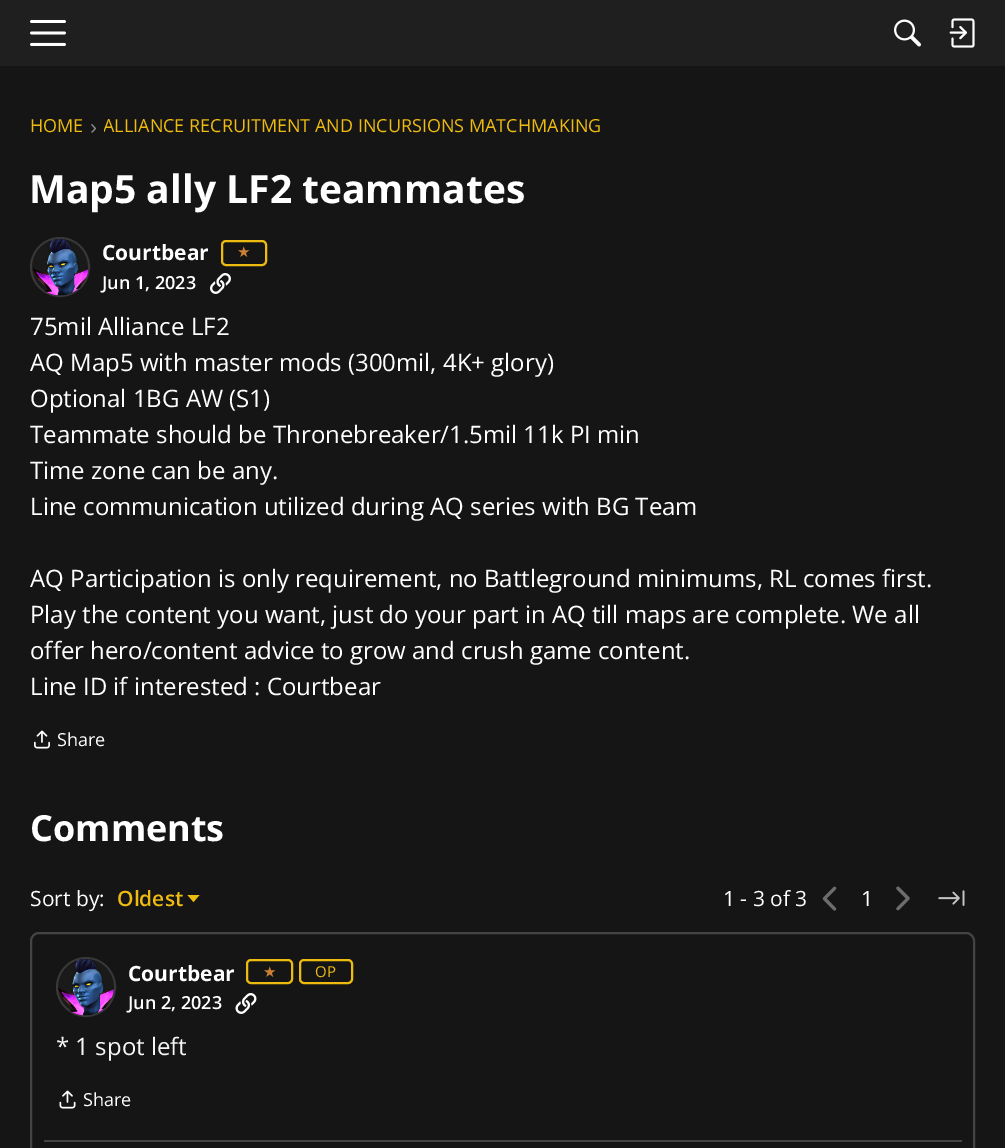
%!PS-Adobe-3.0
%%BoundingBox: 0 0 1005 1148
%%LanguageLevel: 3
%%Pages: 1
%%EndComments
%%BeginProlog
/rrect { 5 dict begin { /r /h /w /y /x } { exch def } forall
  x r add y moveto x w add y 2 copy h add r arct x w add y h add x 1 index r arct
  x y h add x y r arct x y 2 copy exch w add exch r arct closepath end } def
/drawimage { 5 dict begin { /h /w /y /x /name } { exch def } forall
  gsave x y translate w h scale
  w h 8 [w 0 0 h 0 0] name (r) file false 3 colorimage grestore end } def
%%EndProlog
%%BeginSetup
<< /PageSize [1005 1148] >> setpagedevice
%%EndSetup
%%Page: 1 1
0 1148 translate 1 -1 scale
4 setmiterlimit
0.082 setgray
0 0 1005 1148 rectfill
0.122 setgray
0 0 1005 66 rectfill
(images/1.raw) 30 20 36 26 drawimage
(images/2.raw) 894 19 27 28 drawimage
(images/3.raw) 949 18 26 30 drawimage
0.22 setgray
2 setlinewidth
newpath 60 267 29 0 360 arc closepath stroke
(images/4.raw) 32 239 57 57 drawimage
0.933 0.737 0.067 setrgbcolor
222 241 44 24 4 rrect stroke
(images/5.raw) 210 273 21 21 drawimage
(images/6.raw) 34 730 16 19 drawimage
newpath 187.5 895 moveto 199.5 895 lineto 193.5 902 lineto closepath fill
(images/7.raw) 822 886 15 25 drawimage
(images/8.raw) 896 886 14 25 drawimage
(images/9.raw) 938 890 27 16 drawimage
0.267 setgray
31 933 943 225 8 rrect stroke
0.22 setgray
newpath 86 987 29 0 360 arc closepath stroke
(images/10.raw) 57 959 57 57 drawimage
0.933 0.737 0.067 setrgbcolor
247 960 45 23 4 rrect stroke
300 960 52 23 4 rrect stroke
(images/11.raw) 235 993 22 21 drawimage
(images/12.raw) 59 1090 17 19 drawimage
0.267 setgray
44 1140 918 2 rectfill
/OpenSans-Regular [18 0 0 -18 0 0] selectfont
0.933 0.737 0.067 setrgbcolor
30 132 moveto (HOME) show
/LiberationSans-Regular [21 0 0 -21 0 0] selectfont
0.541 setgray
90 134 moveto (›) show
gsave
104 114 498 24 rectclip
/OpenSans-Regular [18 0 0 -18 0 0] selectfont
0.933 0.737 0.067 setrgbcolor
103 132 moveto (ALLIANCE RECRUITMENT AND INCURSIONS MATCHMAKING) show
grestore
/OpenSans-Bold [39 0 0 -39 0 0] selectfont
1 setgray
29 203 moveto (Map5 ally LF2 teammates) show
/OpenSans-Bold [21 0 0 -21 0 0] selectfont
102 260 moveto (Courtbear) show
/DejaVuSans-Regular [15 0 0 -15 0 0] selectfont
0.804 0.498 0.196 setrgbcolor
237 257 moveto (★) show
/OpenSans-SemiBold [18 0 0 -18 0 0] selectfont
1 setgray
102 289 moveto (Jun 1, 2023) show
/OpenSans-Regular [24 0 0 -24 0 0] selectfont
30 335 moveto (75mil Alliance LF2) show
30 371 moveto (AQ Map5 with master mods \(300mil, 4K+ glory\)) show
30 407 moveto (Optional 1BG AW \(S1\)) show
30 443 moveto (Teammate should be Thronebreaker/1.5mil 11k PI min) show
30 479 moveto (Time zone can be any.) show
30 515 moveto (Line communication utilized during AQ series with BG Team) show
30 587 moveto (AQ Participation is only requirement, no Battleground minimums, RL comes first.) show
30 623 moveto (Play the content you want, just do your part in AQ till maps are complete. We all) show
30 659 moveto (offer hero/content advice to grow and crush game content.) show
30 695 moveto (Line ID if interested : Courtbear) show
/OpenSans-Regular [18 0 0 -18 0 0] selectfont
57 746 moveto (Share) show
/OpenSans-Bold [36 0 0 -36 0 0] selectfont
30 841 moveto (Comments) show
/OpenSans-Regular [21 0 0 -21 0 0] selectfont
30 906 moveto (Sort by:) show
/OpenSans-SemiBold [21 0 0 -21 0 0] selectfont
0.933 0.737 0.067 setrgbcolor
117 906 moveto (Oldest) show
/OpenSans-Regular [21 0 0 -21 0 0] selectfont
1 setgray
723 906 moveto (1 - 3 of 3) show
861 906 moveto (1) show
/OpenSans-Bold [21 0 0 -21 0 0] selectfont
128 981 moveto (Courtbear) show
/DejaVuSans-Regular [15 0 0 -15 0 0] selectfont
0.804 0.498 0.196 setrgbcolor
263 977 moveto (★) show
/OpenSans-Regular [15 0 0 -15 0 0] selectfont
0.933 0.737 0.067 setrgbcolor
315 977 moveto (OP) show
/OpenSans-SemiBold [18 0 0 -18 0 0] selectfont
1 setgray
128 1009 moveto (Jun 2, 2023) show
/OpenSans-Regular [24 0 0 -24 0 0] selectfont
0.961 0.965 0.969 setrgbcolor
56 1055 moveto (* 1 spot left) show
/OpenSans-Regular [18 0 0 -18 0 0] selectfont
1 setgray
83 1106 moveto (Share) show
showpage
%%EOF
